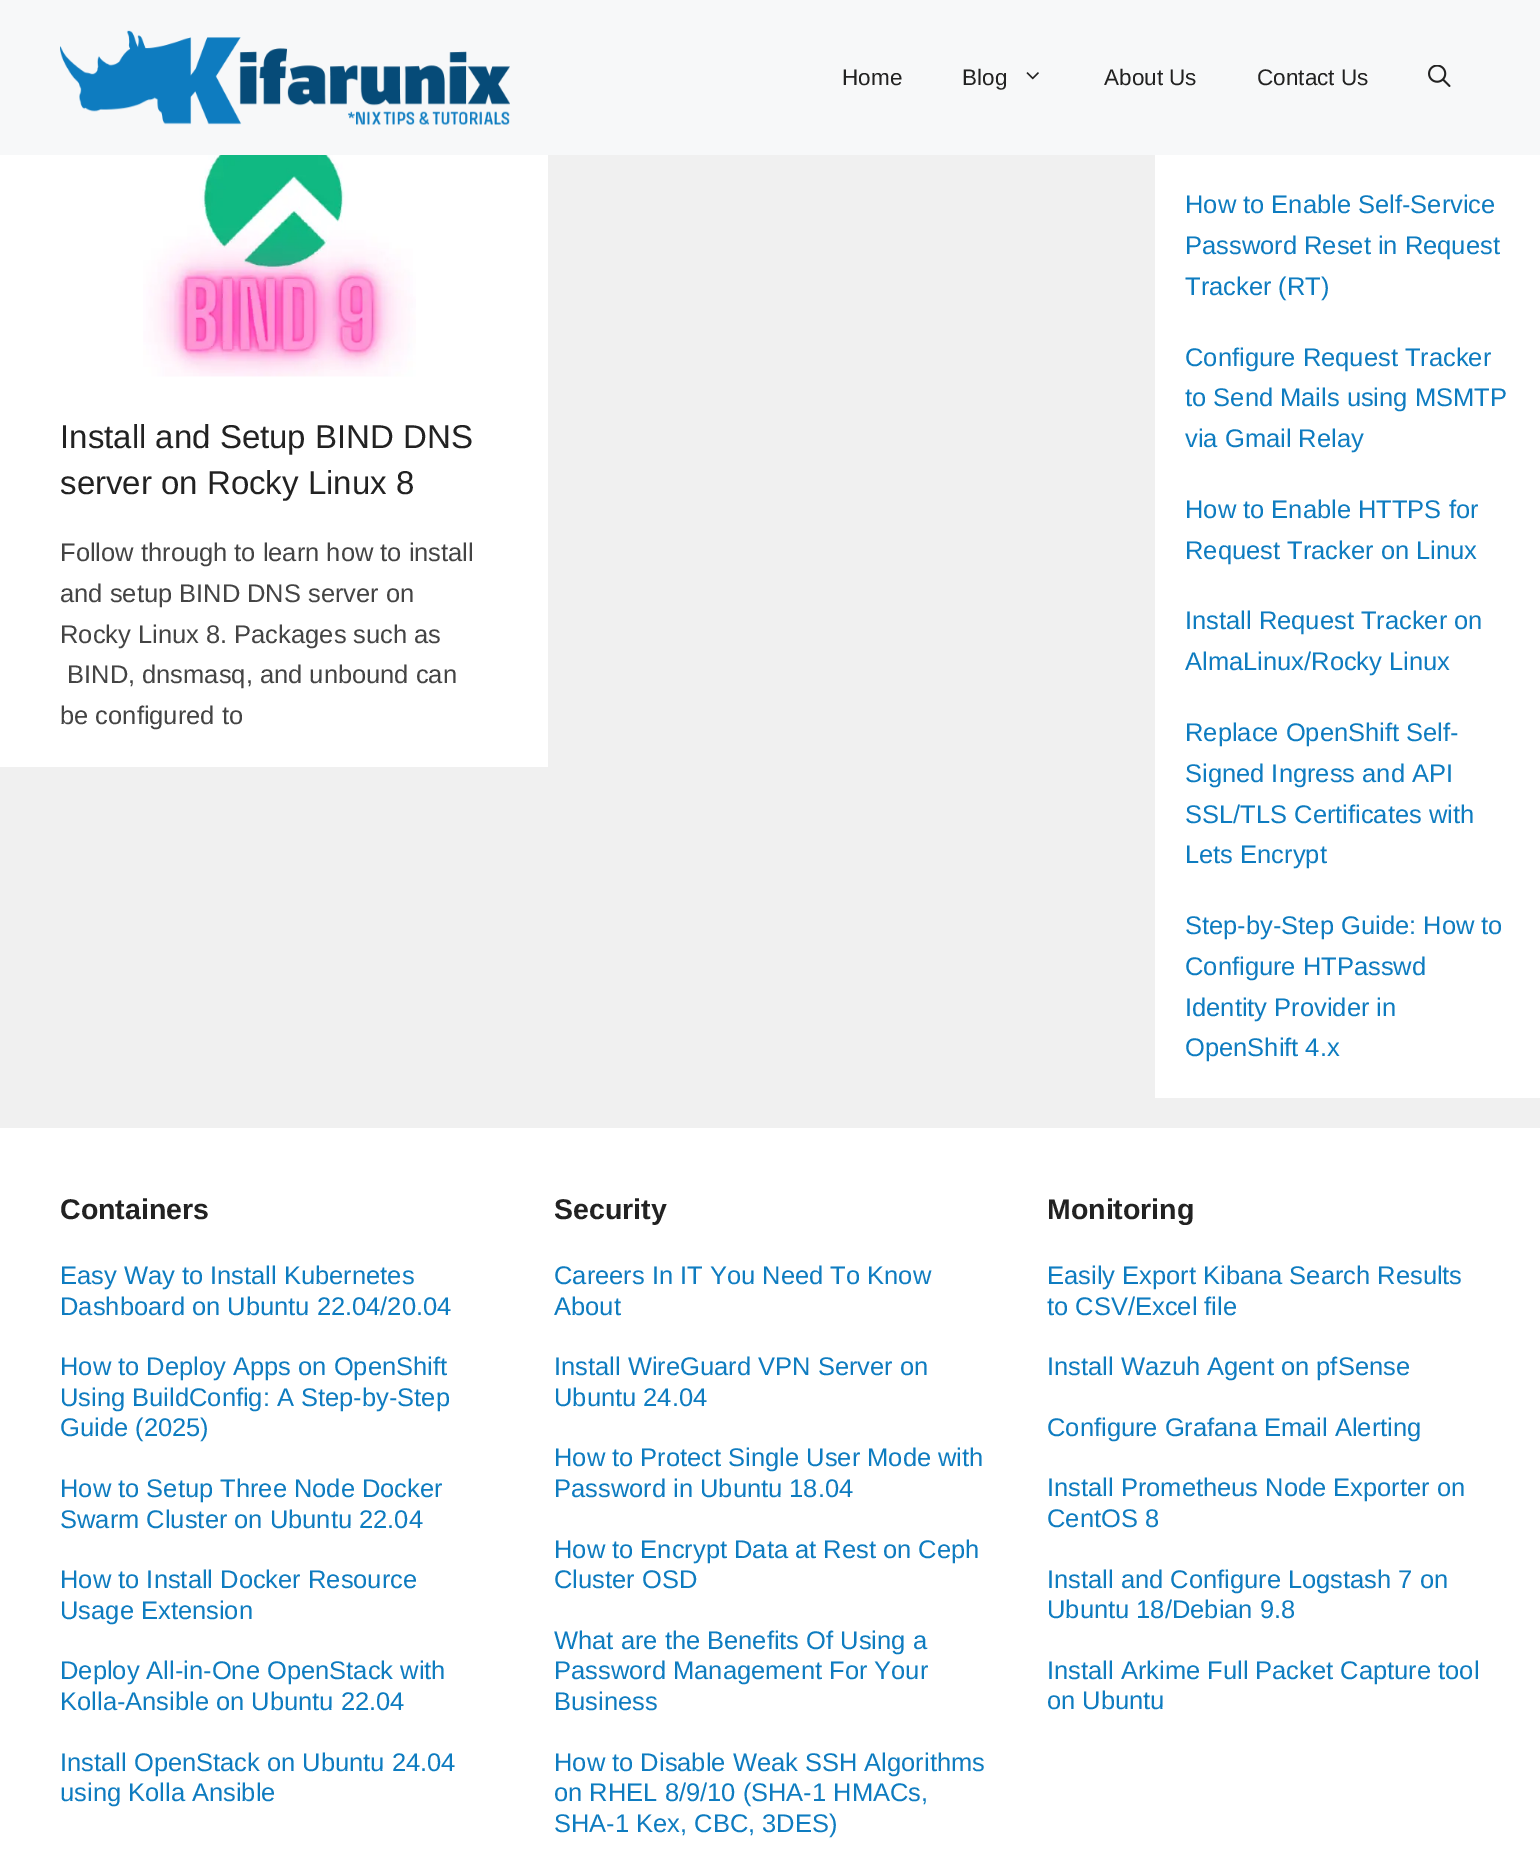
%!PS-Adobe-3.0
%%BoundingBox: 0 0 1540 1872
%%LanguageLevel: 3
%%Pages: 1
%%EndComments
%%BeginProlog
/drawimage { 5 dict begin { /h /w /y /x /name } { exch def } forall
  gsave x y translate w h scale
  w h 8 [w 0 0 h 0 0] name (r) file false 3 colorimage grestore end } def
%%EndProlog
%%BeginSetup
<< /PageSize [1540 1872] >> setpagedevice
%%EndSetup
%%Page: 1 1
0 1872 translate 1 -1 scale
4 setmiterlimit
0.941 setgray
0 0 1540 1872 rectfill
0.969 0.973 0.976 setrgbcolor
0 0 1540 155 rectfill
(images/1.raw) 60 30 450 95 drawimage
(images/2.raw) 1026 72 13 8 drawimage
(images/3.raw) 1428 65 23 22 drawimage
1 setgray
0 155 548 612 rectfill
(images/4.raw) 143 155 273 222 drawimage
1155 155 385 943 rectfill
0 1128 1540 744 rectfill
/LiberationSans-Regular [22.5 0 0 -22.5 0 0] selectfont
0.133 setgray
842 85 moveto (Home) show
962 85 moveto (Blog) show
1104 85 moveto (About Us) show
1257 85 moveto (Contact Us) show
/LiberationSans-Regular [33 0 0 -33 0 0] selectfont
60 448 moveto (Install and Setup BIND DNS) show
60 494 moveto (server on Rocky Linux 8) show
/LiberationSans-Regular [25.5 0 0 -25.5 0 0] selectfont
0.267 setgray
60 561 moveto (Follow through to learn how to install) show
60 602 moveto (and setup BIND DNS server on) show
60 643 moveto (Rocky Linux 8. Packages such as) show
67 683 moveto (BIND, dnsmasq, and unbound can) show
60 724 moveto (be configured to) show
0.055 0.486 0.753 setrgbcolor
1185 213 moveto (How to Enable Self-Service) show
1185 254 moveto (Password Reset in Request) show
1185 295 moveto (Tracker \(RT\)) show
1185 366 moveto (Configure Request Tracker) show
1185 406 moveto (to Send Mails using MSMTP) show
1185 447 moveto (via Gmail Relay) show
1185 518 moveto (How to Enable HTTPS for) show
1185 559 moveto (Request Tracker on Linux) show
1185 629 moveto (Install Request Tracker on) show
1185 670 moveto (AlmaLinux/Rocky Linux) show
1185 741 moveto (Replace OpenShift Self-) show
1185 782 moveto (Signed Ingress and API) show
1185 823 moveto (SSL/TLS Certificates with) show
1185 863 moveto (Lets Encrypt) show
1185 934 moveto (Step-by-Step Guide: How to) show
1185 975 moveto (Configure HTPasswd) show
1185 1016 moveto (Identity Provider in) show
1185 1056 moveto (OpenShift 4.x) show
/LiberationSans-Bold [28.5 0 0 -28.5 0 0] selectfont
0.133 setgray
60 1219 moveto (Containers) show
/LiberationSans-Regular [25.5 0 0 -25.5 0 0] selectfont
0.055 0.486 0.753 setrgbcolor
60 1284 moveto (Easy Way to Install Kubernetes) show
60 1315 moveto (Dashboard on Ubuntu 22.04/20.04) show
60 1375 moveto (How to Deploy Apps on OpenShift) show
60 1406 moveto (Using BuildConfig: A Step-by-Step) show
60 1436 moveto (Guide \(2025\)) show
60 1497 moveto (How to Setup Three Node Docker) show
60 1528 moveto (Swarm Cluster on Ubuntu 22.04) show
60 1588 moveto (How to Install Docker Resource) show
60 1619 moveto (Usage Extension) show
60 1679 moveto (Deploy All-in-One OpenStack with) show
60 1710 moveto (Kolla-Ansible on Ubuntu 22.04) show
60 1771 moveto (Install OpenStack on Ubuntu 24.04) show
60 1801 moveto (using Kolla Ansible) show
/LiberationSans-Bold [28.5 0 0 -28.5 0 0] selectfont
0.133 setgray
554 1219 moveto (Security) show
/LiberationSans-Regular [25.5 0 0 -25.5 0 0] selectfont
0.055 0.486 0.753 setrgbcolor
554 1284 moveto (Careers In IT You Need To Know) show
554 1315 moveto (About) show
554 1375 moveto (Install WireGuard VPN Server on) show
554 1406 moveto (Ubuntu 24.04) show
554 1466 moveto (How to Protect Single User Mode with) show
554 1497 moveto (Password in Ubuntu 18.04) show
554 1558 moveto (How to Encrypt Data at Rest on Ceph) show
554 1588 moveto (Cluster OSD) show
554 1649 moveto (What are the Benefits Of Using a) show
554 1679 moveto (Password Management For Your) show
554 1710 moveto (Business) show
554 1771 moveto (How to Disable Weak SSH Algorithms) show
554 1801 moveto (on RHEL 8/9/10 \(SHA-1 HMACs,) show
554 1832 moveto (SHA-1 Kex, CBC, 3DES\)) show
/LiberationSans-Bold [28.5 0 0 -28.5 0 0] selectfont
0.133 setgray
1047 1219 moveto (Monitoring) show
/LiberationSans-Regular [25.5 0 0 -25.5 0 0] selectfont
0.055 0.486 0.753 setrgbcolor
1047 1284 moveto (Easily Export Kibana Search Results) show
1047 1315 moveto (to CSV/Excel file) show
1047 1375 moveto (Install Wazuh Agent on pfSense) show
1047 1436 moveto (Configure Grafana Email Alerting) show
1047 1496 moveto (Install Prometheus Node Exporter on) show
1047 1527 moveto (CentOS 8) show
1047 1588 moveto (Install and Configure Logstash 7 on) show
1047 1618 moveto (Ubuntu 18/Debian 9.8) show
1047 1679 moveto (Install Arkime Full Packet Capture tool) show
1047 1709 moveto (on Ubuntu) show
showpage
%%EOF
